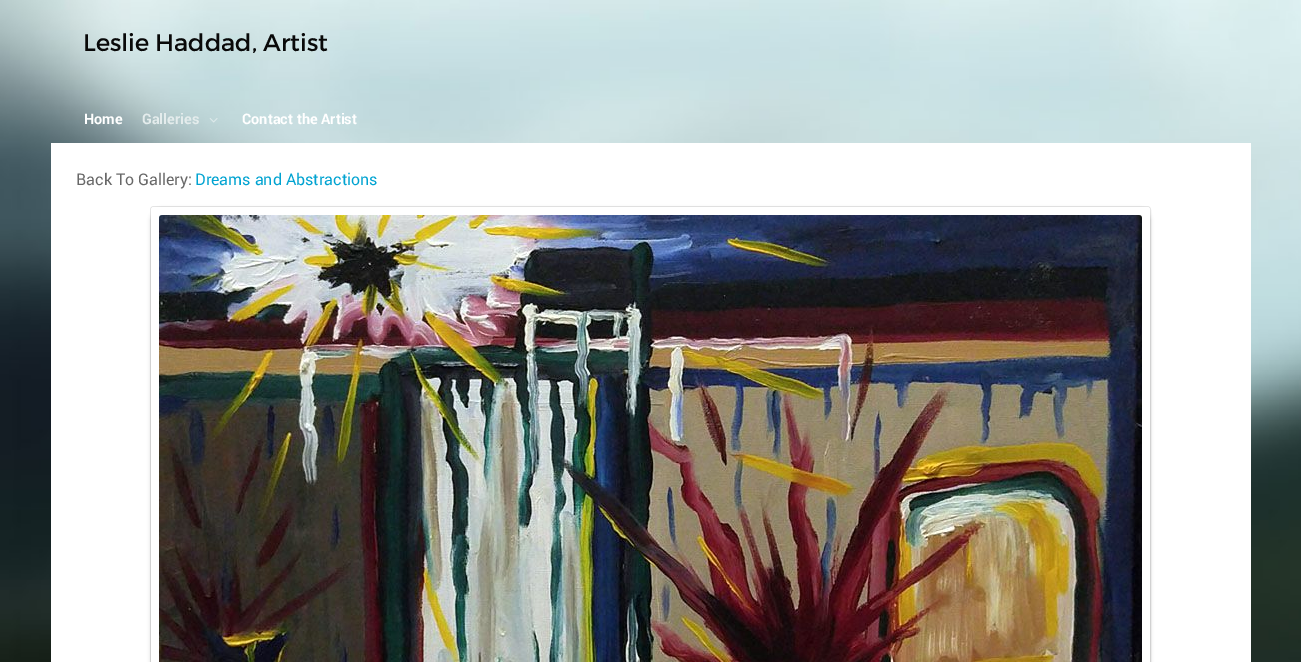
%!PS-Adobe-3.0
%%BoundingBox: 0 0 1301 662
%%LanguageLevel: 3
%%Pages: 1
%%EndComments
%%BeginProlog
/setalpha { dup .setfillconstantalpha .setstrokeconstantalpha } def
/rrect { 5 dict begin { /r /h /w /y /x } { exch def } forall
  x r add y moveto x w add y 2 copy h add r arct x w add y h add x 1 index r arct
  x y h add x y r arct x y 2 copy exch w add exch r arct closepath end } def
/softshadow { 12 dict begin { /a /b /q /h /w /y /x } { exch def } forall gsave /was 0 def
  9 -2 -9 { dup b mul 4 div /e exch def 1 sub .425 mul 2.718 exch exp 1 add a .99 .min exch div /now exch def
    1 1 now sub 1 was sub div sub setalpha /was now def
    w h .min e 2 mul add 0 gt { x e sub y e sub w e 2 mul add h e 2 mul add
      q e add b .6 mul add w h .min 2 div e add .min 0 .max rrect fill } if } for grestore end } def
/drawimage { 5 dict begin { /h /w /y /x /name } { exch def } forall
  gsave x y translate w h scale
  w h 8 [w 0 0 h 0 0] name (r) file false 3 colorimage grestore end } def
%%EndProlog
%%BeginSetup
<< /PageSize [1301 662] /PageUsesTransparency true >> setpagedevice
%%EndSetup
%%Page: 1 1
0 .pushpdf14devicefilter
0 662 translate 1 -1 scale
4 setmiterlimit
1 setgray
0 0 1301 662 rectfill
(images/1.raw) 0 0 1301 662 drawimage
(images/2.raw) 209 118 9 5 drawimage
51 143 1200 519 rectfill
0 setgray
151 209 999 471 12 2 0.2 softshadow
0.1 setalpha
newpath 154 206.5 moveto 1147 206.5 lineto 1149 206.5 1150.5 208 1150.5 210 curveto 1150.5 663 lineto 1150.5 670 1145 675.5 1138 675.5 curveto 163 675.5 lineto 156 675.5 150.5 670 150.5 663 curveto 150.5 210 lineto 150.5 208 152 206.5 154 206.5 curveto closepath stroke
1 setalpha
1 setgray
newpath 154 207 moveto 1147 207 lineto 1148.5 207 1150 208.5 1150 210 curveto 1150 662 lineto 1150 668.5 1144.5 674 1138 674 curveto 163 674 lineto 156.5 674 151 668.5 151 662 curveto 151 210 lineto 151 208.5 152.5 207 154 207 curveto closepath fill
newpath 154 208 moveto 1147 208 lineto 1149 208 1150 209 1150 211 curveto 1150 209 1149 207 1147 207 curveto 154 207 lineto 152 207 151 209 151 211 curveto 151 209 152 208 154 208 curveto closepath fill
(images/3.raw) 159 215 983 447 drawimage
/Montserrat-Regular [24 0 0 -24 0 0] selectfont
0.035 setgray
83 51 moveto (Leslie Haddad, Artist) show
/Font-Bold [14.5 0 0 -14.5 0 0] selectfont
1 setgray
84 124 moveto (Home) show
0.894 0.925 0.925 setrgbcolor
142 124 moveto (Galleries) show
1 setgray
242 124 moveto (Contact the Artist) show
/Font-Regular [16 0 0 -16 0 0] selectfont
0.408 setgray
76 185 moveto (Back To Gallery:) show
0.004 0.639 0.82 setrgbcolor
195 185 moveto (Dreams and Abstractions) show
.poppdf14devicefilter showpage
%%EOF
